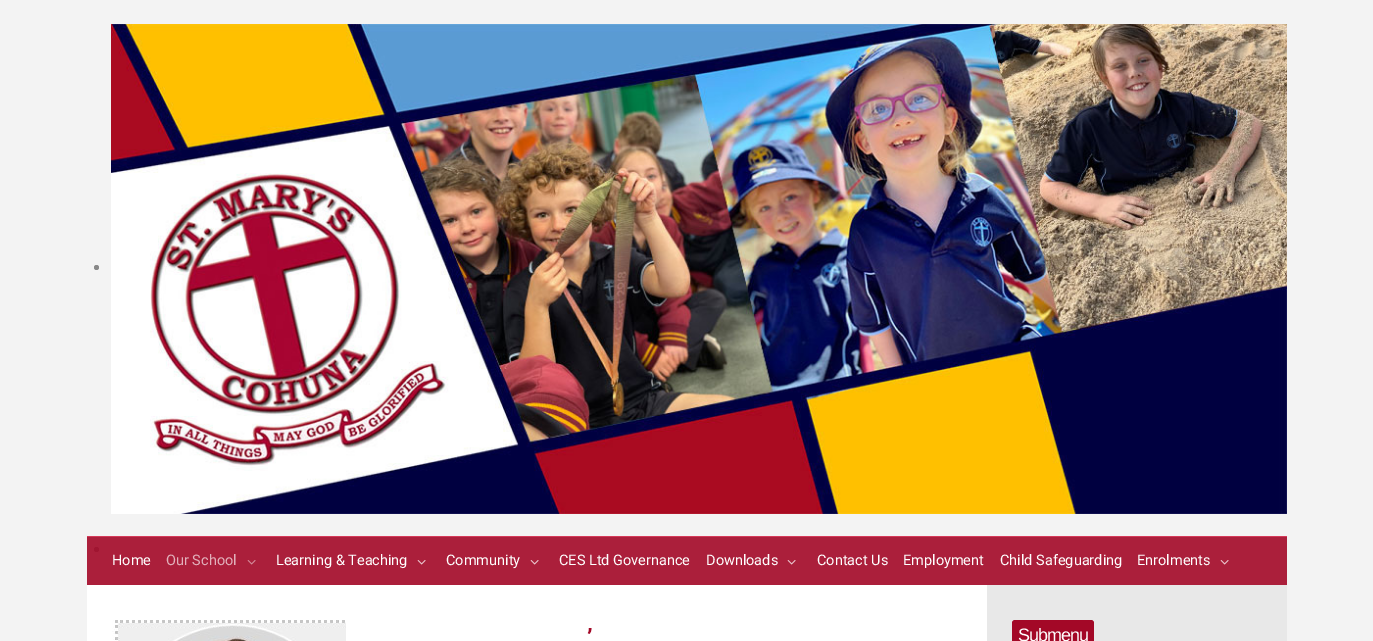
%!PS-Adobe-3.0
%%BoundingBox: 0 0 1373 641
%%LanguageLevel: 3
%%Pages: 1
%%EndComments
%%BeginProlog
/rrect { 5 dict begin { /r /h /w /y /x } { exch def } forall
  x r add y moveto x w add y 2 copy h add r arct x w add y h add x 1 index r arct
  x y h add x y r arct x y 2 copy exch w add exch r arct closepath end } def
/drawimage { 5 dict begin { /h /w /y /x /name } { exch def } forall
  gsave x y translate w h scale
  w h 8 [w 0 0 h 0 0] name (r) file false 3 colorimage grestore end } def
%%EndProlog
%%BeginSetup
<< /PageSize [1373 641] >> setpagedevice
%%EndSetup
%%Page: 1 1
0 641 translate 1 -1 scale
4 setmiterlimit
0.953 setgray
0 0 1373 641 rectfill
0.671 0.122 0.231 setrgbcolor
87 537 1200 48 rectfill
0.533 setgray
newpath 96.5 267.5 2.5 0 360 arc closepath fill
(images/1.raw) 111 24 1176 490 drawimage
0.627 0.082 0.192 setrgbcolor
newpath 96.5 549.5 2.5 0 360 arc closepath fill
0.835 0.227 0.349 setrgbcolor
87 536 1200 1 rectfill
(images/2.raw) 247 560 9 5 drawimage
(images/3.raw) 417 560 9 5 drawimage
(images/3.raw) 530 560 9 5 drawimage
(images/3.raw) 787 560 9 5 drawimage
(images/3.raw) 1220 560 9 5 drawimage
1 setgray
87 585 900 56 rectfill
(images/4.raw) 112 620 234 21 drawimage
0.91 setgray
987 585 300 56 rectfill
0.639 0.031 0.153 setrgbcolor
1012 620 82 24 3 rrect fill
/Roboto-Regular [14.5 0 0 -14.5 0 0] selectfont
1 setgray
112 565 moveto (Home) show
0.886 0.694 0.733 setrgbcolor
166 565 moveto (Our School) show
1 setgray
276 565 moveto (Learning & Teaching) show
446 565 moveto (Community) show
559 565 moveto (CES Ltd Governance) show
706 565 moveto (Downloads) show
817 565 moveto (Contact Us) show
903 565 moveto (Employment) show
1000 565 moveto (Child Safeguarding) show
1137 565 moveto (Enrolments) show
/Roboto-Bold [24 0 0 -24 0 0] selectfont
0.639 0.031 0.153 setrgbcolor
587 646 moveto (’) show
/LiberationSans-Regular [18 0 0 -18 0 0] selectfont
1 setgray
1018 641 moveto -1 0 (Submenu) ashow
showpage
%%EOF
